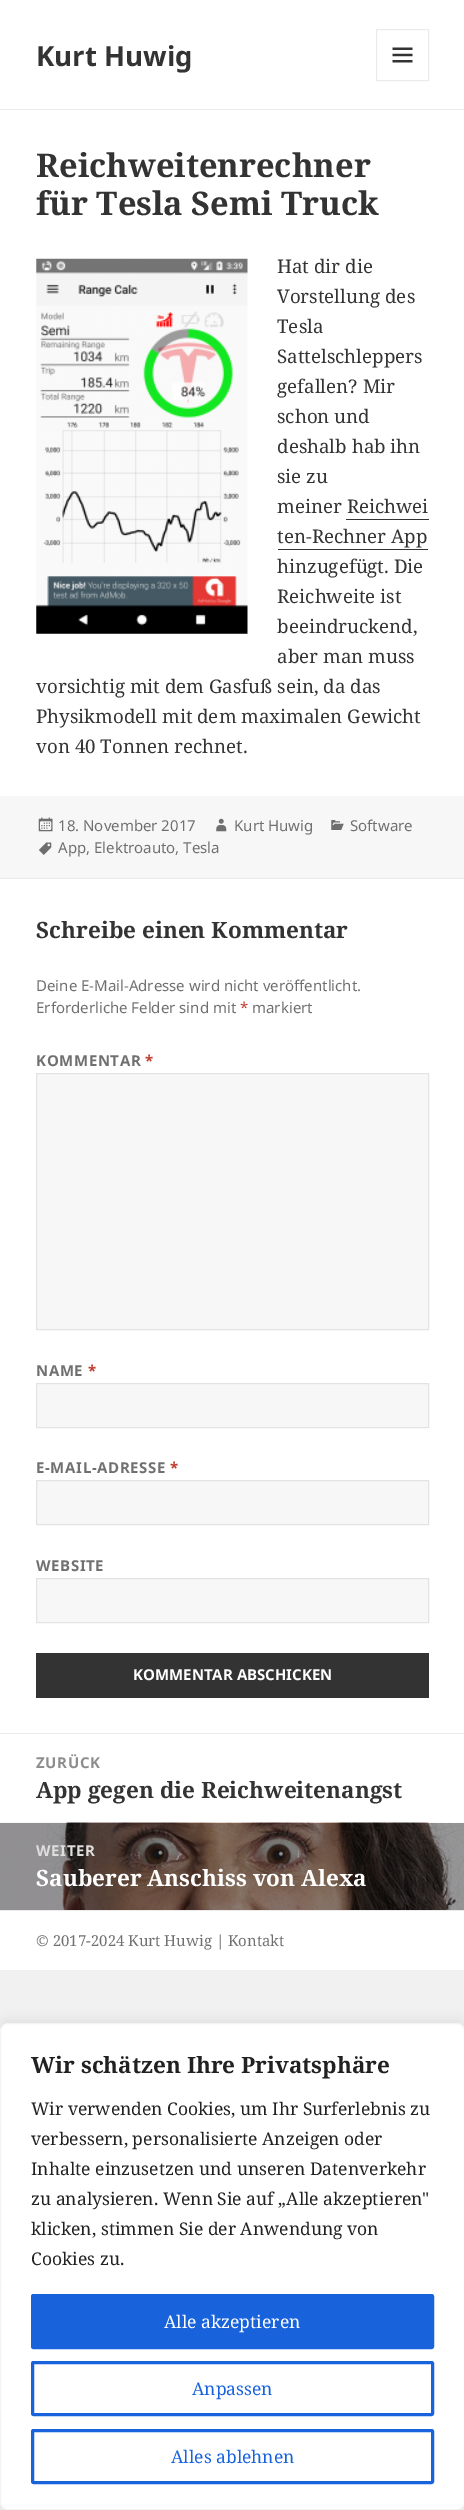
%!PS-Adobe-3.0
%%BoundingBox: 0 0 464 2510
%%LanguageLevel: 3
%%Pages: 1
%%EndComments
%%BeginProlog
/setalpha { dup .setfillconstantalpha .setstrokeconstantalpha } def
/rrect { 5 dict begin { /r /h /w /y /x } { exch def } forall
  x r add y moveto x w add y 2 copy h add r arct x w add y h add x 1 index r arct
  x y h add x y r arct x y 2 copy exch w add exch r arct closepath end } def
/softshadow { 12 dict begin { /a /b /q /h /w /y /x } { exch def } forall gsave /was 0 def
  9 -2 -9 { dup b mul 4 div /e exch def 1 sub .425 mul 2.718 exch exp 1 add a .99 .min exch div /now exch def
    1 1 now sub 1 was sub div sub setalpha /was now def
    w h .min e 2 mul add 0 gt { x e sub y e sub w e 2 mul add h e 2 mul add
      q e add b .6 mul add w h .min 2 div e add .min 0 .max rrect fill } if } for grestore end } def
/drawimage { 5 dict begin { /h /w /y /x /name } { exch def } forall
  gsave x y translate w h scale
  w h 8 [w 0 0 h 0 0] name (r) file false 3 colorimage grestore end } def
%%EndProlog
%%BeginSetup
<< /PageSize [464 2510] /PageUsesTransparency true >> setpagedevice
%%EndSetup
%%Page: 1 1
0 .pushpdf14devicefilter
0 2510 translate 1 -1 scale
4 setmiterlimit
0.945 setgray
0 0 464 2510 rectfill
1 setgray
0 0 464 109 rectfill
0.922 setgray
0 109 464 1 rectfill
376.5 29.5 52 51 rectstroke
(images/1.raw) 392 47 21 16 drawimage
1 setgray
0 110 464 686 rectfill
(images/2.raw) 36 258 212 376 drawimage
0.2 setgray
346 519 83 1 rectfill
278 549 150 1 rectfill
0.969 setgray
0 796 464 82 rectfill
(images/3.raw) 38 817 15 15 drawimage
(images/4.raw) 216 818 11 14 drawimage
(images/5.raw) 331 820 13 10 drawimage
(images/6.raw) 39 842 13 13 drawimage
1 setgray
0 879 464 854 rectfill
0.922 setgray
0 878 464 1 rectfill
0.969 setgray
newpath 36.5 1073.5 moveto 428.5 1073.5 lineto 428.5 1329.5 lineto 36.5 1329.5 lineto closepath gsave fill grestore
0.89 setgray
stroke
0.969 setgray
newpath 36.5 1383.5 moveto 428.5 1383.5 lineto 428.5 1427.5 lineto 36.5 1427.5 lineto closepath gsave fill grestore
0.89 setgray
stroke
0.969 setgray
newpath 36.5 1480.5 moveto 428.5 1480.5 lineto 428.5 1524.5 lineto 36.5 1524.5 lineto closepath gsave fill grestore
0.89 setgray
stroke
0.969 setgray
newpath 36.5 1578.5 moveto 428.5 1578.5 lineto 428.5 1622.5 lineto 36.5 1622.5 lineto closepath gsave fill grestore
0.89 setgray
stroke
0.2 setgray
36 1653 393 45 rectfill
1 setgray
0 1734 464 89 rectfill
0.922 setgray
0 1733 464 1 rectfill
(images/7.raw) 0 1822 464 88 drawimage
1 setgray
0 1911 464 59 rectfill
0.922 setgray
0 1910 464 1 rectfill
0.675 0.671 0.671 setrgbcolor
0 2021 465 488 8 6 0.3 softshadow
1 setgray
0.5 2023.5 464 486 7.5 rrect gsave fill grestore
0.957 setgray
stroke
0.094 0.388 0.863 setrgbcolor
32.5 2295.5 400 52 1 rrect gsave fill grestore
3 setlinewidth
stroke
32.5 2362.5 400 52 1 rrect stroke
32.5 2430.5 400 52 1 rrect stroke
/NotoSans-Bold [27.5 0 0 -27.5 0 0] selectfont
0.2 setgray
36 66 moveto (Kurt Huwig) show
/NotoSerif-Bold [32.5 0 0 -32.5 0 0] selectfont
36 177 moveto (Reichweitenrechner) show
36 215 moveto (für Tesla Semi Truck) show
/NotoSerif-Regular [18.75 0 0 -18.75 0 0] selectfont
277 273 moveto (Hat dir die) show
277 303 moveto (Vorstellung des) show
277 333 moveto (Tesla) show
277 363 moveto (Sattelschleppers) show
277 393 moveto (gefallen? Mir) show
277 423 moveto (schon und) show
277 453 moveto (deshalb hab ihn) show
277 483 moveto (sie zu) show
277 513 moveto (meiner Reichwei) show
277 543 moveto (ten-Rechner App) show
277 573 moveto (hinzugefügt. Die) show
277 603 moveto (Reichweite ist) show
277 633 moveto (beeindruckend,) show
277 663 moveto (aber man muss) show
36 693 moveto (vorsichtig mit dem Gasfuß sein, da das) show
36 723 moveto (Physikmodell mit dem maximalen Gewicht) show
36 753 moveto (von 40 Tonnen rechnet.) show
/NotoSans-Regular [15 0 0 -15 0 0] selectfont
0.439 setgray
58 831 moveto (18. November 2017) show
234 831 moveto (Kurt Huwig) show
350 831 moveto (Software) show
58 853 moveto (App, Elektroauto, Tesla) show
/NotoSerif-Bold [22.5 0 0 -22.5 0 0] selectfont
0.2 setgray
36 938 moveto (Schreibe einen Kommentar) show
/NotoSans-Regular [15 0 0 -15 0 0] selectfont
0.439 setgray
36 991 moveto (Deine E-Mail-Adresse wird nicht veröffentlicht.) show
36 1013 moveto (Erforderliche Felder sind mit) show
0.753 0.224 0.169 setrgbcolor
240 1013 moveto (*) show
0.439 setgray
252 1013 moveto (markiert) show
/NotoSans-Bold [15 0 0 -15 0 0] selectfont
36 1066 moveto 0.6 0 (KOMMENTAR) ashow
0.753 0.224 0.169 setrgbcolor
145 1066 moveto 0.6 0 (*) ashow
0.439 setgray
36 1376 moveto 0.6 0 (NAME) ashow
0.753 0.224 0.169 setrgbcolor
88 1376 moveto 0.6 0 (*) ashow
0.439 setgray
36 1473 moveto 0.6 0 (E-MAIL-ADRESSE) ashow
0.753 0.224 0.169 setrgbcolor
170 1473 moveto 0.6 0 (*) ashow
0.439 setgray
36 1571 moveto 0.6 0 (WEBSITE) ashow
1 setgray
133 1680 moveto (KOMMENTAR ABSCHICKEN) show
0.553 setgray
36 1768 moveto 0.6 0 (ZURÜCK) ashow
/NotoSerif-Bold [22.5 0 0 -22.5 0 0] selectfont
0.2 setgray
36 1798 moveto (App gegen die Reichweitenangst) show
/NotoSans-Bold [15 0 0 -15 0 0] selectfont
0.875 0.871 0.871 setrgbcolor
36 1856 moveto 0.6 0 (WEITER) ashow
/NotoSerif-Bold [22.5 0 0 -22.5 0 0] selectfont
1 setgray
36 1886 moveto (Sauberer Anschiss von Alexa) show
/NotoSerif-Regular [15 0 0 -15 0 0] selectfont
0.439 setgray
36 1946 moveto (© 2017-2024 Kurt Huwig | Kontakt) show
/NotoSerif-Bold [22.5 0 0 -22.5 0 0] selectfont
0.129 setgray
31 2073 moveto (Wir schätzen Ihre Privatsphäre) show
/NotoSerif-Regular [17.5 0 0 -17.5 0 0] selectfont
31 2115 moveto (Wir verwenden Cookies, um Ihr Surferlebnis zu) show
31 2145 moveto (verbessern, personalisierte Anzeigen oder) show
31 2175 moveto (Inhalte einzusetzen und unseren Datenverkehr) show
31 2205 moveto (zu analysieren. Wenn Sie auf „Alle akzeptieren") show
31 2235 moveto (klicken, stimmen Sie der Anwendung von) show
31 2265 moveto (Cookies zu.) show
1 setgray
164 2328 moveto (Alle akzeptieren) show
0.094 0.388 0.863 setrgbcolor
192 2395 moveto (Anpassen) show
171 2463 moveto (Alles ablehnen) show
.poppdf14devicefilter showpage
%%EOF
